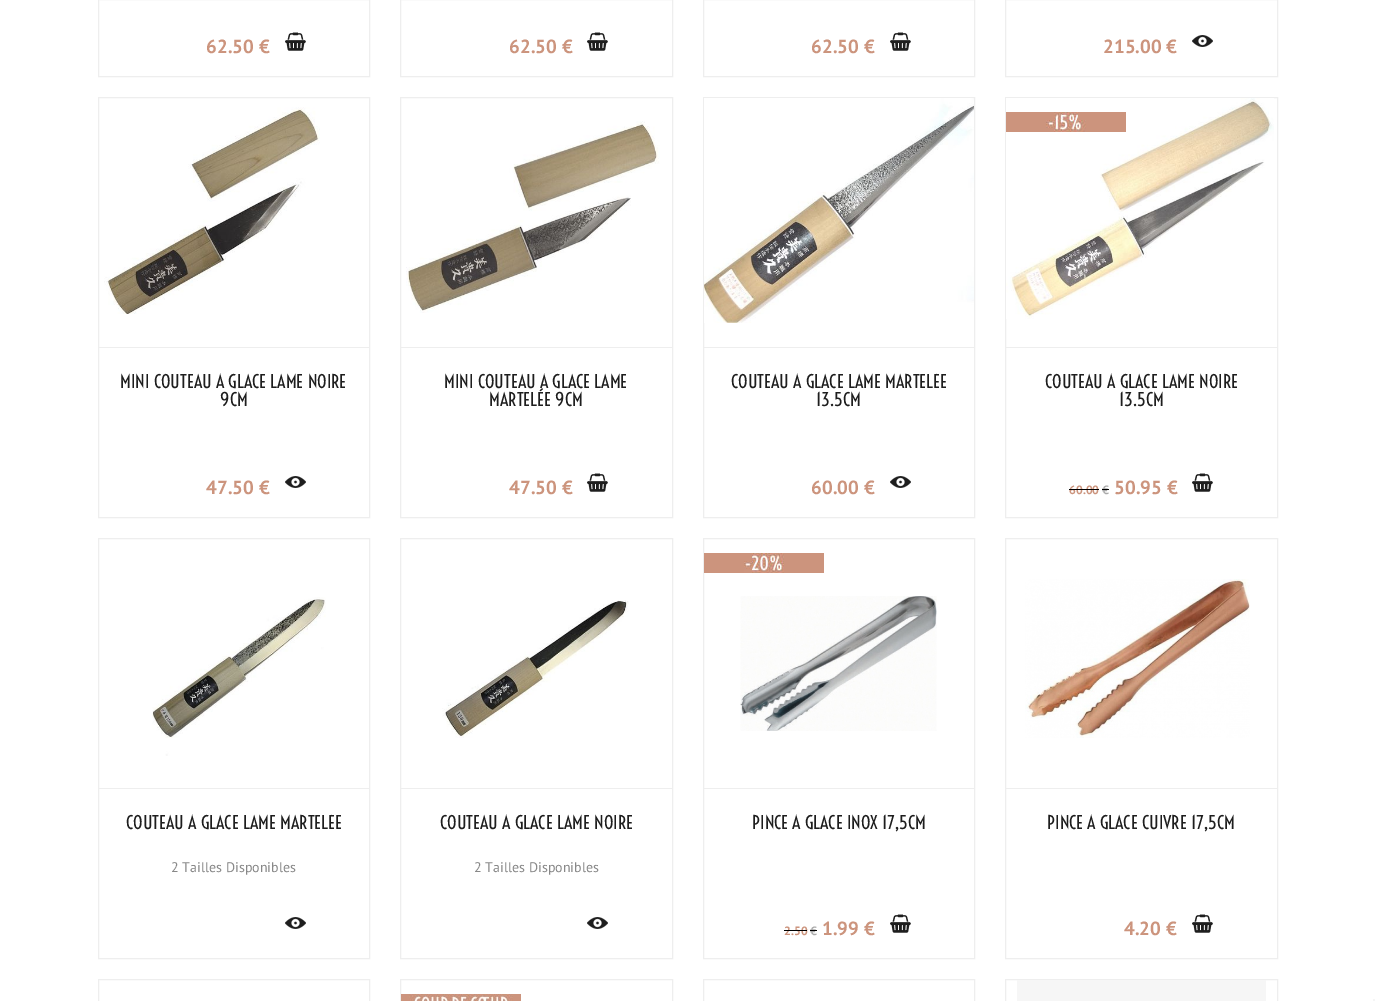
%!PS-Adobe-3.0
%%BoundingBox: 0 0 1375 1001
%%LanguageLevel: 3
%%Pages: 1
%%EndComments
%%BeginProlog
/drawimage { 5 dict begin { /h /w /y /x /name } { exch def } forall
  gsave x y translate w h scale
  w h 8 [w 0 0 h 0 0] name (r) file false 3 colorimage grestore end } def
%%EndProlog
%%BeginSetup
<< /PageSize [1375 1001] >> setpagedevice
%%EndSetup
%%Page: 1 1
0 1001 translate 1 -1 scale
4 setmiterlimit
1 setgray
0 0 1375 1001 rectfill
0.933 setgray
98.5 -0.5 271 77 rectstroke
(images/1.raw) 285 32 21 19 drawimage
400.5 -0.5 272 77 rectstroke
(images/1.raw) 587 32 21 19 drawimage
703.5 -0.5 271 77 rectstroke
(images/1.raw) 890 32 21 19 drawimage
1005.5 -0.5 272 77 rectstroke
(images/2.raw) 1192 35 21 12 drawimage
98.5 97.5 271 420 rectstroke
99 347 270 1 rectfill
(images/3.raw) 104 107 216 207 drawimage
(images/2.raw) 285 476 21 12 drawimage
400.5 97.5 272 420 rectstroke
401 347 271 1 rectfill
(images/4.raw) 406 121 254 192 drawimage
(images/1.raw) 587 473 21 19 drawimage
703.5 97.5 271 420 rectstroke
704 347 270 1 rectfill
(images/5.raw) 704 98 270 225 drawimage
(images/2.raw) 890 476 21 12 drawimage
1005.5 97.5 272 420 rectstroke
1006 347 271 1 rectfill
(images/6.raw) 1006 98 268 221 drawimage
(images/7.raw) 1006 112 120 20 drawimage
(images/1.raw) 1192 473 21 19 drawimage
98.5 538.5 271 420 rectstroke
99 788 270 1 rectfill
(images/8.raw) 152 597 174 159 drawimage
(images/2.raw) 285 917 21 12 drawimage
400.5 538.5 272 420 rectstroke
401 788 271 1 rectfill
(images/9.raw) 442 600 187 138 drawimage
(images/2.raw) 587 917 21 12 drawimage
703.5 538.5 271 420 rectstroke
(images/10.raw) 704 553 120 20 drawimage
(images/1.raw) 890 914 21 19 drawimage
704 788 270 1 rectfill
(images/11.raw) 740 596 197 135 drawimage
1005.5 538.5 272 420 rectstroke
1006 788 271 1 rectfill
(images/12.raw) 1025 579 225 159 drawimage
(images/1.raw) 1192 914 21 19 drawimage
98.5 979.5 271 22 rectstroke
400.5 979.5 272 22 rectstroke
(images/13.raw) 401 994 120 7 drawimage
703.5 979.5 271 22 rectstroke
1005.5 979.5 272 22 rectstroke
0.965 setgray
1017 980 249 21 rectfill
0.961 setgray
1373 999 2 2 rectfill
/PTSans-Bold [19 0 0 -19 0 0] selectfont
0.8 0.58 0.49 setrgbcolor
206 53 moveto (62.50 €) show
509 53 moveto (62.50 €) show
811 53 moveto (62.50 €) show
1103 53 moveto (215.00 €) show
gsave
114 373 240 36 rectclip
/Voltaire-Regular [18 0 0 -18 0 0] selectfont
0.118 setgray
120 388 moveto (MINI COUTEAU À GLACE LAME NOIRE) show
grestore
/Voltaire-Regular [18 0 0 -18 0 0] selectfont
0.118 setgray
220 406 moveto (9CM) show
/PTSans-Bold [19 0 0 -19 0 0] selectfont
0.8 0.58 0.49 setrgbcolor
206 494 moveto (47.50 €) show
gsave
416 373 241 36 rectclip
/Voltaire-Regular [18 0 0 -18 0 0] selectfont
0.118 setgray
444 388 moveto (MINI COUTEAU À GLACE LAME) show
grestore
/Voltaire-Regular [18 0 0 -18 0 0] selectfont
0.118 setgray
489 406 moveto (MARTELÉE 9CM) show
/PTSans-Bold [19 0 0 -19 0 0] selectfont
0.8 0.58 0.49 setrgbcolor
509 494 moveto (47.50 €) show
gsave
719 373 240 36 rectclip
/Voltaire-Regular [18 0 0 -18 0 0] selectfont
0.118 setgray
731 388 moveto (COUTEAU À GLACE LAME MARTELÉE) show
grestore
/Voltaire-Regular [18 0 0 -18 0 0] selectfont
0.118 setgray
816 406 moveto (13.5CM) show
/PTSans-Bold [19 0 0 -19 0 0] selectfont
0.8 0.58 0.49 setrgbcolor
811 494 moveto (60.00 €) show
gsave
1021 373 241 36 rectclip
/Voltaire-Regular [18 0 0 -18 0 0] selectfont
0.118 setgray
1045 388 moveto (COUTEAU À GLACE LAME NOIRE) show
grestore
/Voltaire-Regular [18 0 0 -18 0 0] selectfont
0.118 setgray
1119 406 moveto (13.5CM) show
/PTSans-Bold [12 0 0 -12 0 0] selectfont
0.8 0.58 0.49 setrgbcolor
1069 494 moveto (60.00) show
0 setgray
1069 489 30 1 rectfill
0.667 setgray
1102 494 moveto (€) show
0 setgray
1102 489 7 1 rectfill
/PTSans-Bold [19 0 0 -19 0 0] selectfont
0.8 0.58 0.49 setrgbcolor
1114 494 moveto (50.95 €) show
gsave
114 814 240 36 rectclip
/Voltaire-Regular [18 0 0 -18 0 0] selectfont
0.118 setgray
126 829 moveto (COUTEAU À GLACE LAME MARTELÉE) show
grestore
/PTSans-Regular [14 0 0 -14 0 0] selectfont
0.533 setgray
171 872 moveto (2 Tailles Disponibles) show
gsave
416 814 241 36 rectclip
/Voltaire-Regular [18 0 0 -18 0 0] selectfont
0.118 setgray
440 829 moveto (COUTEAU À GLACE LAME NOIRE) show
grestore
474 872 moveto (2 Tailles Disponibles) show
gsave
719 814 240 36 rectclip
/Voltaire-Regular [18 0 0 -18 0 0] selectfont
0.118 setgray
752 829 moveto (PINCE À GLACE INOX 17,5CM) show
grestore
/PTSans-Bold [12 0 0 -12 0 0] selectfont
0.8 0.58 0.49 setrgbcolor
784 935 moveto (2.50) show
0 setgray
784 930 23 1 rectfill
0.667 setgray
810 935 moveto (€) show
0 setgray
810 930 7 1 rectfill
/PTSans-Bold [19 0 0 -19 0 0] selectfont
0.8 0.58 0.49 setrgbcolor
822 935 moveto (1.99 €) show
gsave
1021 814 241 36 rectclip
/Voltaire-Regular [18 0 0 -18 0 0] selectfont
0.118 setgray
1047 829 moveto (PINCE À GLACE CUIVRE 17,5CM) show
grestore
1124 935 moveto (4.20 €) show
showpage
%%EOF
